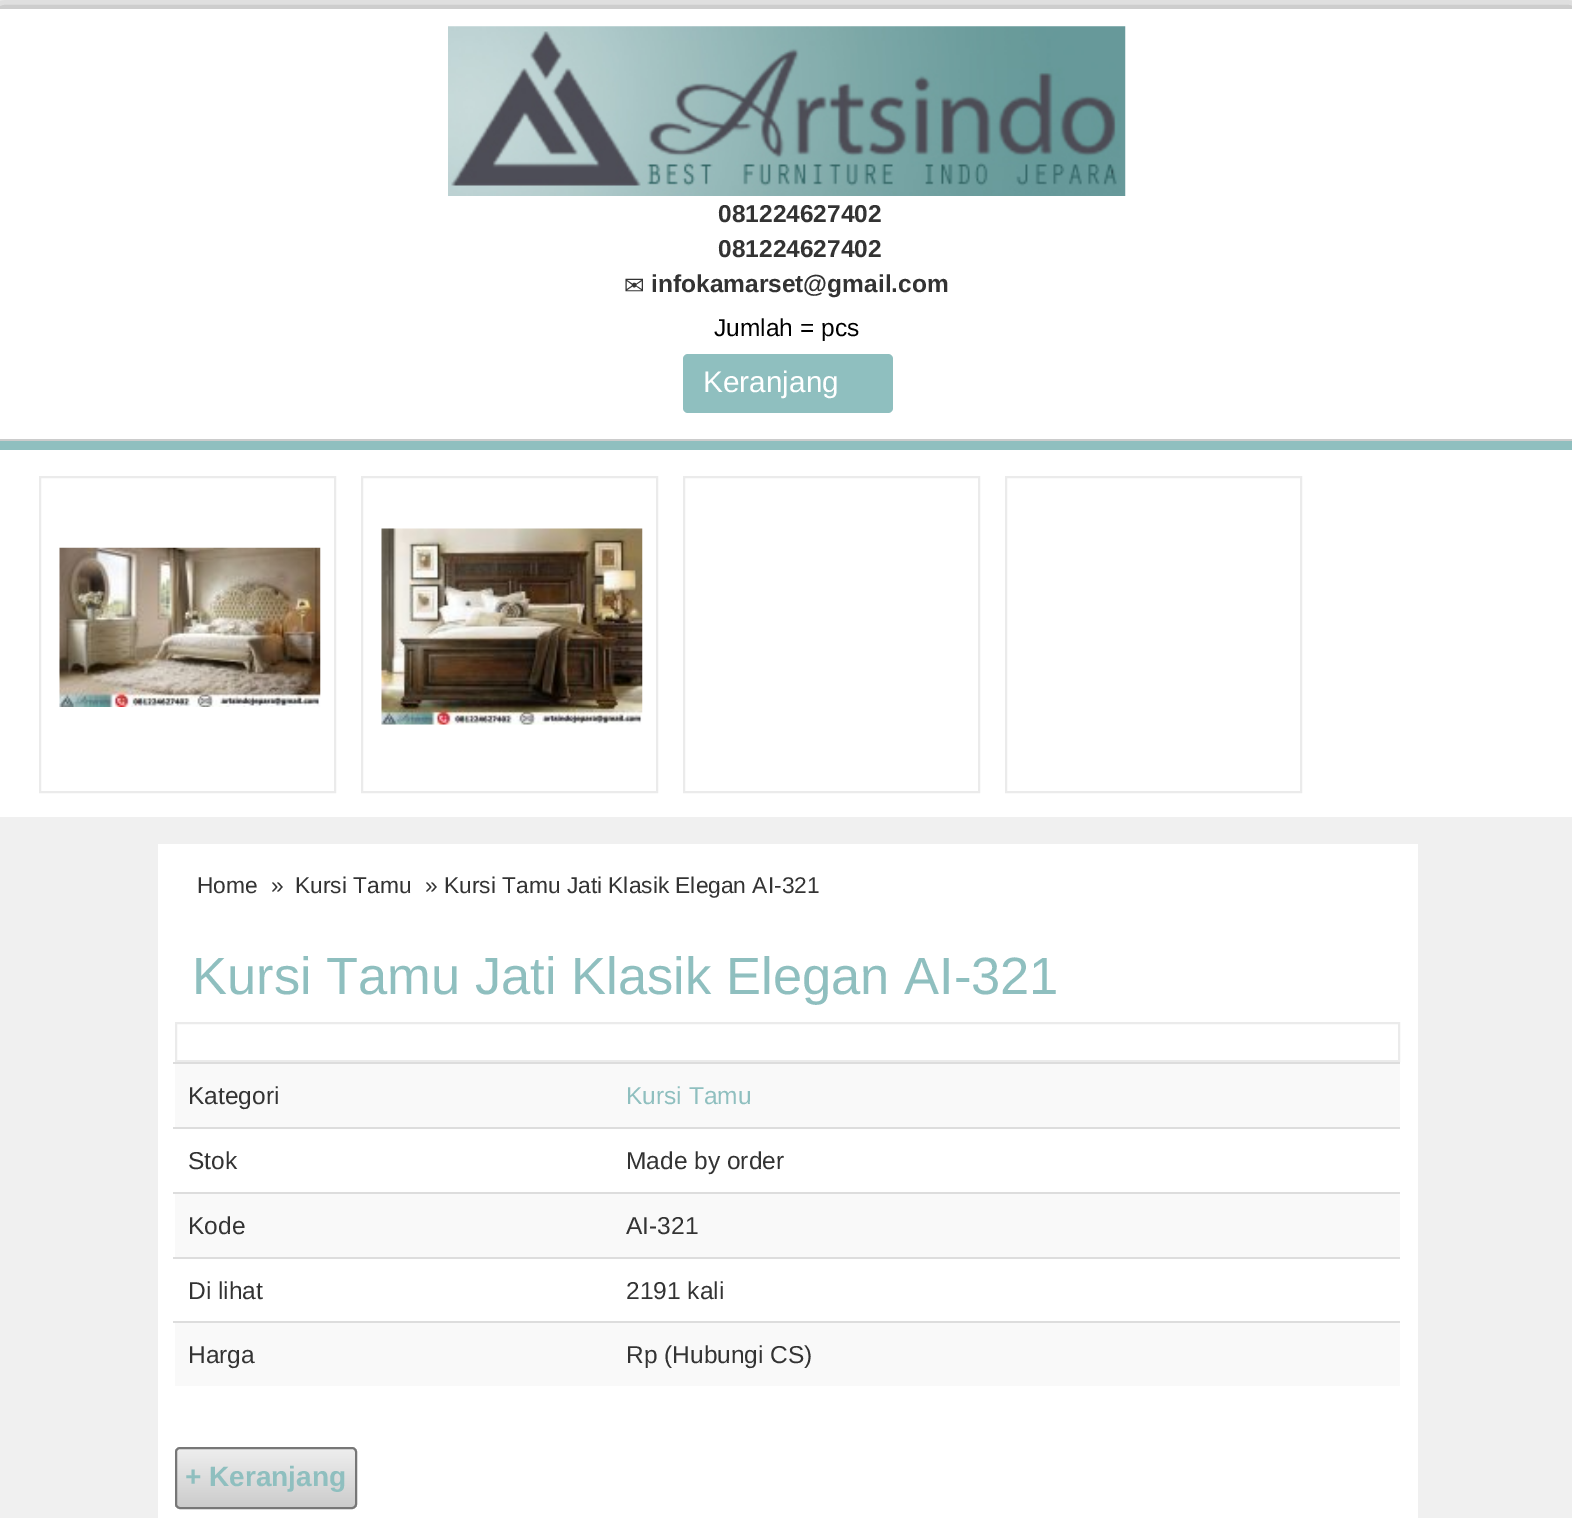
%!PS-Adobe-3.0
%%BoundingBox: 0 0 1572 1518
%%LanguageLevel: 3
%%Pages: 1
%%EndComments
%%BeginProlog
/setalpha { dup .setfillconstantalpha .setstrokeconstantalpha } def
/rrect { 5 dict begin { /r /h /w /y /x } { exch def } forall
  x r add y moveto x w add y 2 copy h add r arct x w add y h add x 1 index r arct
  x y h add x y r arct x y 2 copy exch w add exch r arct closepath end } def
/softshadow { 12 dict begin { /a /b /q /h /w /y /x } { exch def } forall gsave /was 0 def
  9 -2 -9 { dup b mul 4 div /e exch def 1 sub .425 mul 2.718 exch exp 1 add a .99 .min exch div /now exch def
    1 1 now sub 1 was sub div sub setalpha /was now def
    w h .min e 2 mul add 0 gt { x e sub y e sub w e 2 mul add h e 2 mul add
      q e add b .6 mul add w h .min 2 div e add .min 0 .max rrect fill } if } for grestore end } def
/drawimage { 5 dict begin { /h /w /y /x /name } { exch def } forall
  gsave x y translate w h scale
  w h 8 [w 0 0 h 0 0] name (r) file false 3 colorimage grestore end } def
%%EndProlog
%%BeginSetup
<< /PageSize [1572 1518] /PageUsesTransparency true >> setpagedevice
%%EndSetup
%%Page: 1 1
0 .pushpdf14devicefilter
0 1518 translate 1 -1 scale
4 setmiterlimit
0.949 setgray
0 0 1572 1518 rectfill
0.196 setgray
0 12 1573 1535 0 9.5 0.63 softshadow
1 setgray
0 9 1572 808 rectfill
(images/1.raw) 448 26 678 170 drawimage
0.561 0.749 0.749 setrgbcolor
683 354 210 59 5 rrect fill
0.8 setgray
0 439 1572 2 rectfill
0.561 0.749 0.749 setrgbcolor
0 441 1572 9 rectfill
0.922 setgray
2 setlinewidth
40 477 295 315 rectstroke
(images/2.raw) 59 547 262 160 drawimage
362 477 295 315 rectstroke
(images/3.raw) 381 528 262 197 drawimage
684 477 295 315 rectstroke
1006 477 295 315 rectstroke
0.941 setgray
0 817 1572 701 rectfill
1 setgray
158 844 1260 674 rectfill
0.922 setgray
176 1023 1223 38 rectstroke
0.976 setgray
175 1064 1225 63 rectfill
0.867 setgray
173 1062 1227 2 rectfill
173 1127 1227 2 rectfill
0.976 setgray
175 1194 1225 63 rectfill
0.867 setgray
173 1192 1227 2 rectfill
173 1257 1227 2 rectfill
0.976 setgray
175 1323 1225 63 rectfill
0.867 setgray
173 1321 1227 2 rectfill
gsave
175 1447 182 62 5 rrect clip newpath
gsave newpath 175 1449 moveto 357 1449 lineto 357 1507 lineto 175 1507 lineto closepath clip newpath
<< /ShadingType 2 /ColorSpace /DeviceRGB /Coords [266 1449 266 1507] /Extend [true true] /Function << /FunctionType 2 /Domain [0 1] /C0 [0.933 0.933 0.933] /C1 [0.8 0.8 0.8] /N 1 >> >> shfill grestore
grestore
0.467 setgray
176 1448 180 60 4 rrect stroke
/LiberationSans-Bold [24.5 0 0 -24.5 0 0] selectfont
0.2 setgray
718 222 moveto (081224627402) show
718 257 moveto (081224627402) show
/DejaVuSans-Regular [24.5 0 0 -24.5 0 0] selectfont
624 294 moveto (✉) show
/LiberationSans-Bold [24.5 0 0 -24.5 0 0] selectfont
651 292 moveto (infokamarset@gmail.com) show
/LiberationSans-Regular [24.5 0 0 -24.5 0 0] selectfont
0 setgray
714 336 moveto (Jumlah = pcs) show
/LiberationSans-Regular [29.75 0 0 -29.75 0 0] selectfont
1 setgray
703 392 moveto (Keranjang) show
/LiberationSans-Regular [22.75 0 0 -22.75 0 0] selectfont
0.2 setgray
197 893 moveto (Home) show
271 893 moveto (») show
295 893 moveto (Kursi Tamu) show
425 893 moveto (» Kursi Tamu Jati Klasik Elegan AI-321) show
/LiberationSans-Regular [52.5 0 0 -52.5 0 0] selectfont
0.561 0.749 0.749 setrgbcolor
192 994 moveto (Kursi Tamu Jati Klasik Elegan AI-321) show
/LiberationSans-Regular [24.5 0 0 -24.5 0 0] selectfont
0.2 setgray
188 1104 moveto (Kategori) show
0.561 0.749 0.749 setrgbcolor
626 1104 moveto (Kursi Tamu) show
0.2 setgray
188 1169 moveto (Stok) show
626 1169 moveto (Made by order) show
188 1234 moveto (Kode) show
626 1234 moveto (AI-321) show
188 1299 moveto (Di lihat) show
626 1299 moveto (2191 kali) show
188 1363 moveto (Harga) show
626 1363 moveto (Rp \(Hubungi CS\)) show
/LiberationSans-Bold [28 0 0 -28 0 0] selectfont
0.561 0.749 0.749 setrgbcolor
185 1486 moveto (+ Keranjang) show
.poppdf14devicefilter showpage
%%EOF
